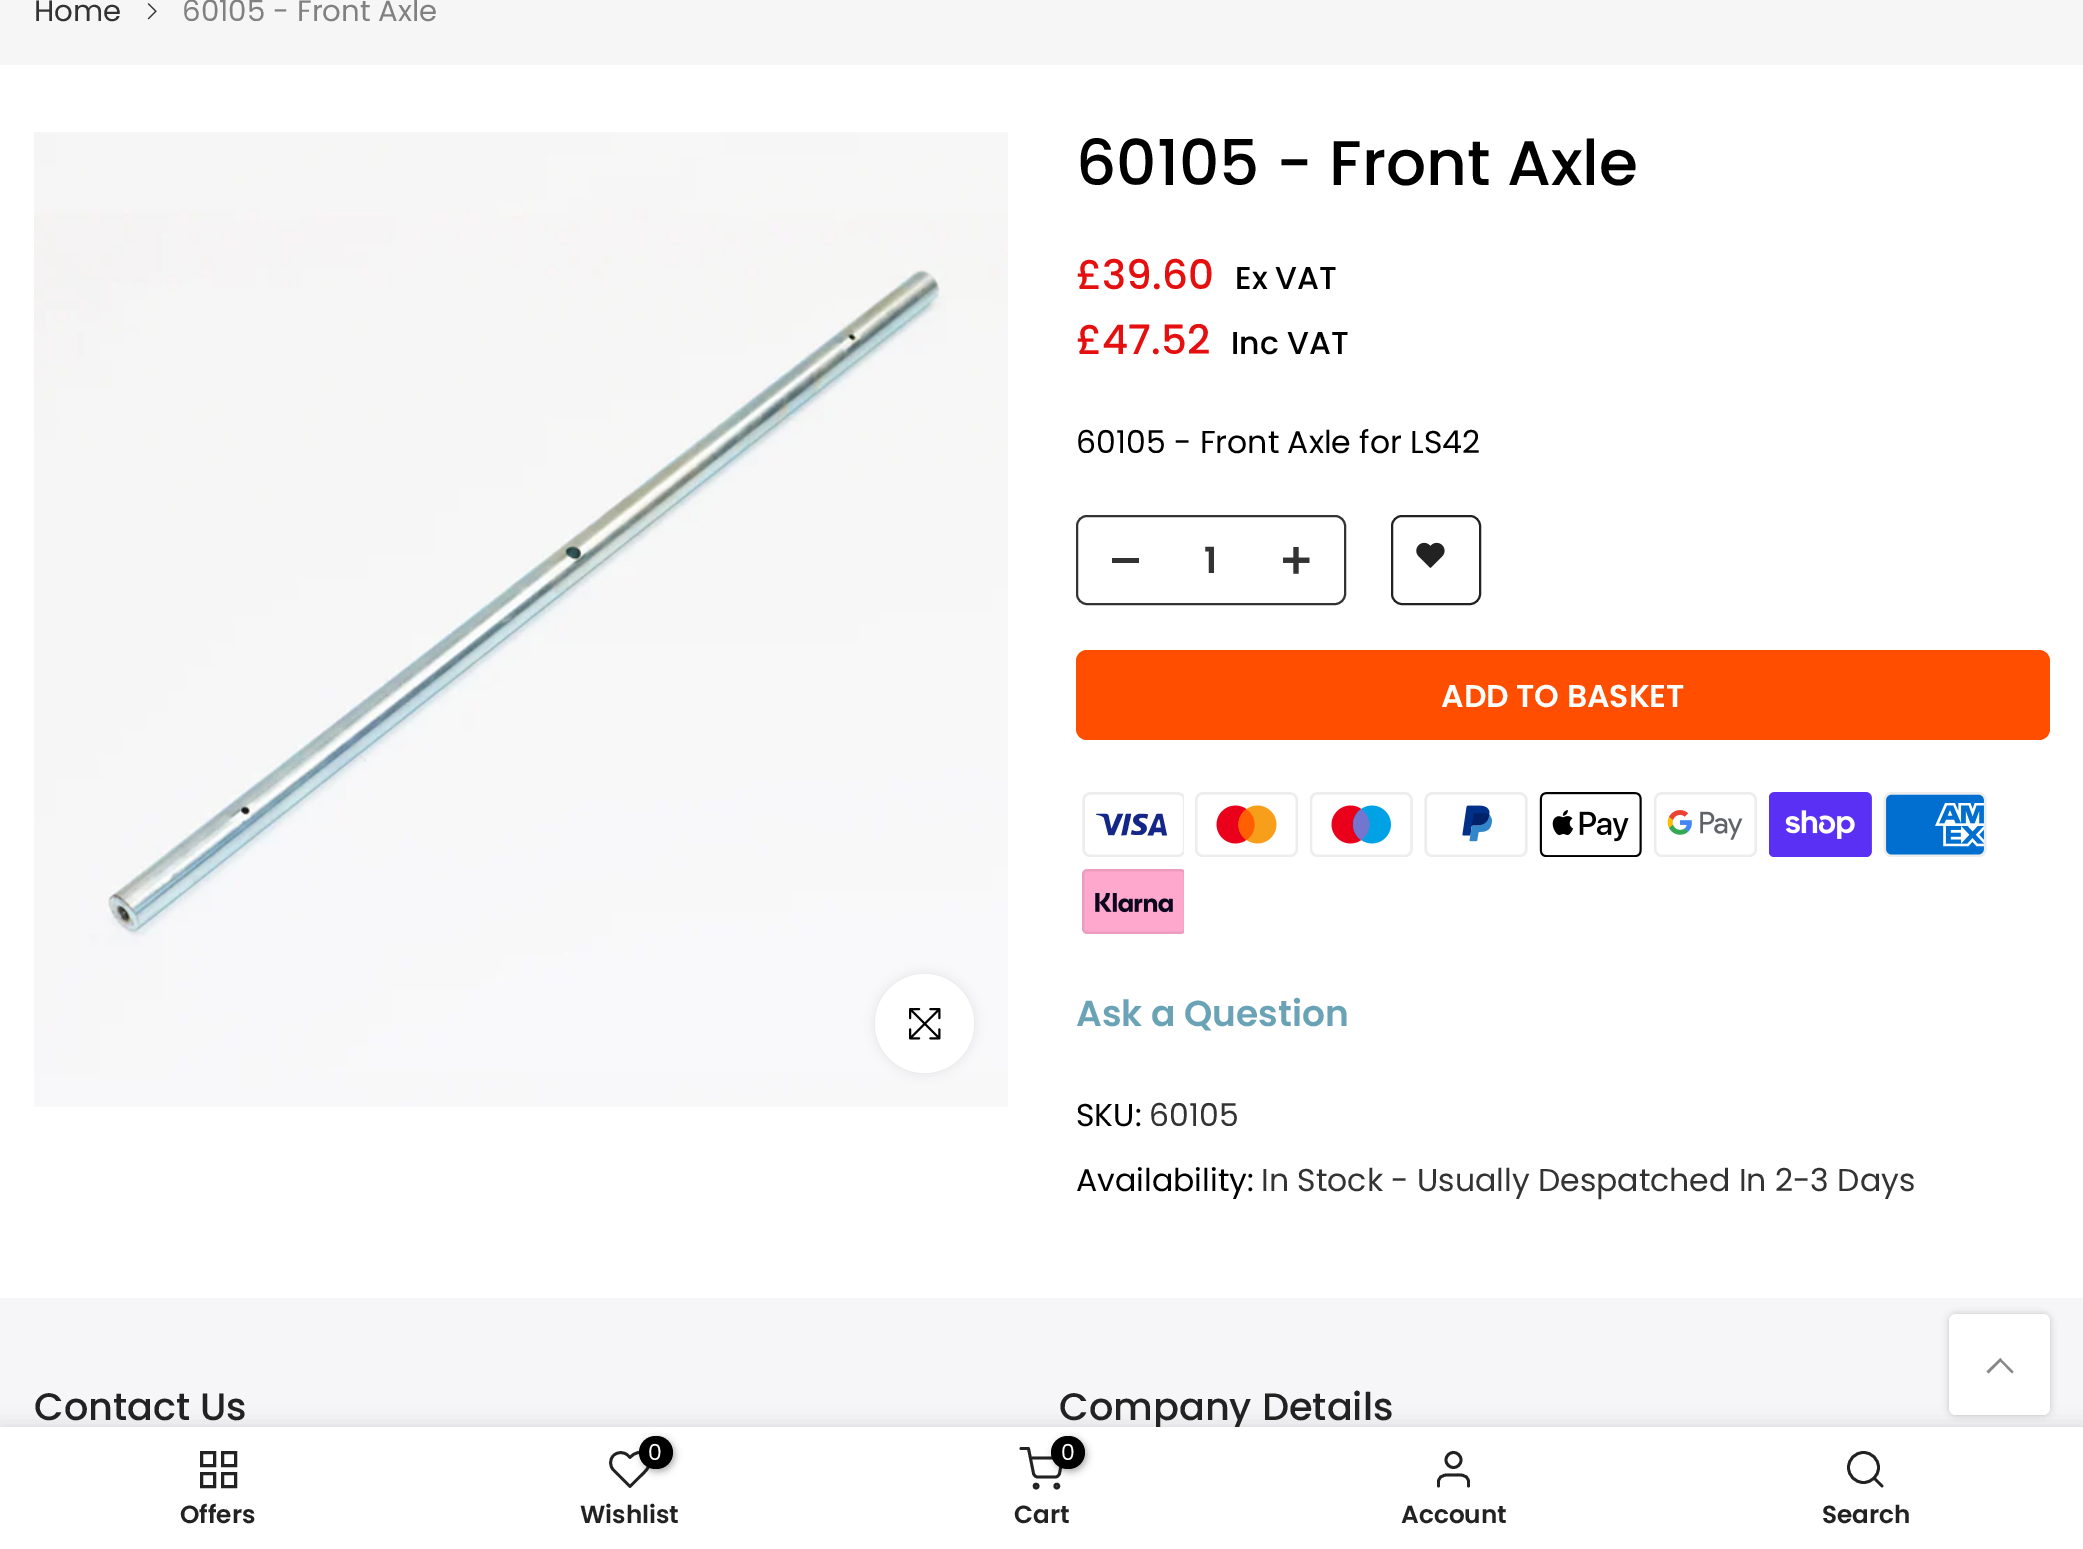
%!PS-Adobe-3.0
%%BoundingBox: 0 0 2083 1549
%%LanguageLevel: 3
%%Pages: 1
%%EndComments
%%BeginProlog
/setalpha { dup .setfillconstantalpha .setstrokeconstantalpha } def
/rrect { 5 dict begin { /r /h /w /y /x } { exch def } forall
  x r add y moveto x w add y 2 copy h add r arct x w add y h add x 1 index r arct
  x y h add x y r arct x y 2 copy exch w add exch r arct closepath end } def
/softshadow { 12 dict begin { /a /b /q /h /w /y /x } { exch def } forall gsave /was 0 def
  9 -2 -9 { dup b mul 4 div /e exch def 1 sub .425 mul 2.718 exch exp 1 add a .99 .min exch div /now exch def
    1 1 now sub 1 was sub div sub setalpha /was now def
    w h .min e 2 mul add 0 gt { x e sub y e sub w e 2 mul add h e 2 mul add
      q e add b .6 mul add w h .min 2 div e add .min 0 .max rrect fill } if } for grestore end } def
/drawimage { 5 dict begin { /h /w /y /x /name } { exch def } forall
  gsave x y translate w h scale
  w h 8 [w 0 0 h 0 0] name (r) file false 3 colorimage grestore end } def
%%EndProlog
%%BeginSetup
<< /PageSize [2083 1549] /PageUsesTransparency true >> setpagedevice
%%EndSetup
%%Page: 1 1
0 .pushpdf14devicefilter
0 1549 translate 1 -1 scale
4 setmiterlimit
1 setgray
0 0 2083 1549 rectfill
0.965 setgray
0 0 2083 65 rectfill
(images/1.raw) 147 3 10 17 drawimage
(images/2.raw) 34 132 974 975 drawimage
0 setgray
875 974 99 99 49.5 5.5 0.09 softshadow
1 setgray
newpath 924.5 1023.5 49.5 0 360 arc closepath fill
(images/3.raw) 909 1008 32 32 drawimage
0.2 setgray
2 setlinewidth
1077 516 268 88 10 rrect stroke
1112 558 27 5 rectfill
(images/4.raw) 1283 547 27 27 drawimage
0.133 setgray
1392 516 88 88 10 rrect stroke
(images/5.raw) 1416 542 29 26 drawimage
1 0.306 0 setrgbcolor
1076 650 974 90 11 rrect fill
(images/6.raw) 1082 792 102 65 drawimage
(images/7.raw) 1195 792 103 65 drawimage
(images/8.raw) 1310 792 103 65 drawimage
(images/9.raw) 1424 792 104 65 drawimage
(images/10.raw) 1539 792 103 65 drawimage
(images/11.raw) 1654 792 103 65 drawimage
(images/12.raw) 1769 792 103 65 drawimage
(images/13.raw) 1883 792 104 65 drawimage
(images/14.raw) 1082 869 102 65 drawimage
0.965 0.965 0.973 setrgbcolor
0 1298 2083 129 rectfill
0 setgray
1949 1314 101 101 7 3.5 0.2 softshadow
0 1427 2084 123 0 10 0.12 softshadow
1 setgray
1949 1314 101 101 7 rrect fill
0.529 setgray
newpath 2002 1360 moveto 2000.5 1358 lineto 1986.5 1371.5 lineto 1988.5 1373.5 lineto 2000.5 1361.5 lineto 2012 1373.5 lineto 2013.5 1371.5 lineto 2007 1365 lineto closepath fill
/Poppins-Regular [29.25 0 0 -29.25 0 0] selectfont
0.2 setgray
34 21 moveto (Home) show
0.506 setgray
182 21 moveto (60105 - Front Axle) show
/Poppins-Medium [63 0 0 -63 0 0] selectfont
0 setgray
1076 185 moveto (60105 - Front Axle) show
/Poppins-Medium [40.5 0 0 -40.5 0 0] selectfont
0.902 0.059 0.059 setrgbcolor
1076 289 moveto (£39.60) show
/Poppins-Medium [31.5 0 0 -31.5 0 0] selectfont
0 setgray
1235 289 moveto (Ex VAT) show
/Poppins-Medium [40.5 0 0 -40.5 0 0] selectfont
0.902 0.059 0.059 setrgbcolor
1076 354 moveto (£47.52) show
/Poppins-Medium [31.5 0 0 -31.5 0 0] selectfont
0 setgray
1231 354 moveto (Inc VAT) show
/Poppins-Regular [31.5 0 0 -31.5 0 0] selectfont
1076 453 moveto (60105 - Front Axle for LS42) show
/Poppins-SemiBold [36 0 0 -36 0 0] selectfont
0.2 setgray
1204 573 moveto (1) show
/Poppins-SemiBold [31.5 0 0 -31.5 0 0] selectfont
1 setgray
1441 707 moveto (ADD TO BASKET) show
/Poppins-SemiBold [36 0 0 -36 0 0] selectfont
0.416 0.635 0.714 setrgbcolor
1076 1026 moveto (Ask a Question) show
/Poppins-Regular [31.5 0 0 -31.5 0 0] selectfont
0 setgray
1076 1126 moveto (SKU:) show
0.2 setgray
1149 1126 moveto (60105) show
0 setgray
1076 1191 moveto (Availability:) show
0.2 setgray
1261 1191 moveto (In Stock - Usually Despatched In 2-3 Days) show
/Poppins-Medium [38.25 0 0 -38.25 0 0] selectfont
0.133 setgray
34 1420 moveto (Contact Us) show
1059 1420 moveto (Company Details) show
1 setgray
0 1427 2083 122 rectfill
0.133 setgray
3 setlinewidth
201.5 1452.5 13 13 rectstroke
222.5 1452.5 13 13 rectstroke
201.5 1473.5 13 13 rectstroke
222.5 1473.5 13 13 rectstroke
/Poppins-SemiBold [24.75 0 0 -24.75 0 0] selectfont
180 1523 moveto (Offers) show
2.8 setlinewidth
1 setlinecap
1 setlinejoin
newpath 646.5 1455.5 moveto 641 1450 634.5 1452.5 630 1457.5 curveto 628 1455.5 lineto 624 1451.5 617.5 1451.5 613.5 1455.5 curveto 609.5 1459.5 609.5 1466 613.5 1470 curveto 630 1486.5 lineto 639.5 1477 lineto 645.5 1471 655 1463.5 646.5 1455.5 curveto closepath stroke
0 setgray
641 1438 34 34 17 3.5 0.3 softshadow
639 1436 34 33 16.5 rrect fill
/Poppins-Regular [22 0 0 -22 0 0] selectfont
1 setgray
648 1460 moveto (0) show
/Poppins-SemiBold [24.75 0 0 -24.75 0 0] selectfont
0.133 setgray
580 1523 moveto (Wishlist) show
newpath 1021 1448.5 moveto 1028.5 1448.5 lineto 1033.5 1473.5 lineto 1034 1475.5 1035.5 1477 1037.5 1477 curveto 1055.5 1477 lineto 1057.5 1477 1059 1475.5 1059.5 1473.5 curveto 1062.5 1458 lineto 1030.5 1458 lineto stroke
0 setlinecap
0 setlinejoin
newpath 1036.1 1486.1 1.9 0 360 arc closepath stroke
newpath 1056.8 1486.1 1.9 0 360 arc closepath stroke
0 setgray
1053 1438 34 34 17 3.5 0.3 softshadow
1051 1436 34 33 16.5 rrect fill
/Poppins-Regular [22 0 0 -22 0 0] selectfont
1 setgray
1061 1460 moveto (0) show
/Poppins-SemiBold [24.75 0 0 -24.75 0 0] selectfont
0.133 setgray
1014 1523 moveto (Cart) show
newpath 1453.5 1460 7.5 0 360 arc closepath stroke
1 setlinecap
1 setlinejoin
newpath 1468.5 1486 moveto 1468.5 1481 lineto 1467 1473.5 1459 1475 1453.5 1475 curveto 1448 1475 1440 1473.5 1438.5 1481 curveto 1438.5 1486 lineto stroke
1401 1523 moveto (Account) show
0 setlinecap
0 setlinejoin
newpath 1863.5 1467.5 15 0 360 arc closepath stroke
1 setlinecap
1 setlinejoin
newpath 1882 1486 moveto 1874 1478 lineto stroke
1822 1523 moveto (Search) show
.poppdf14devicefilter showpage
%%EOF
